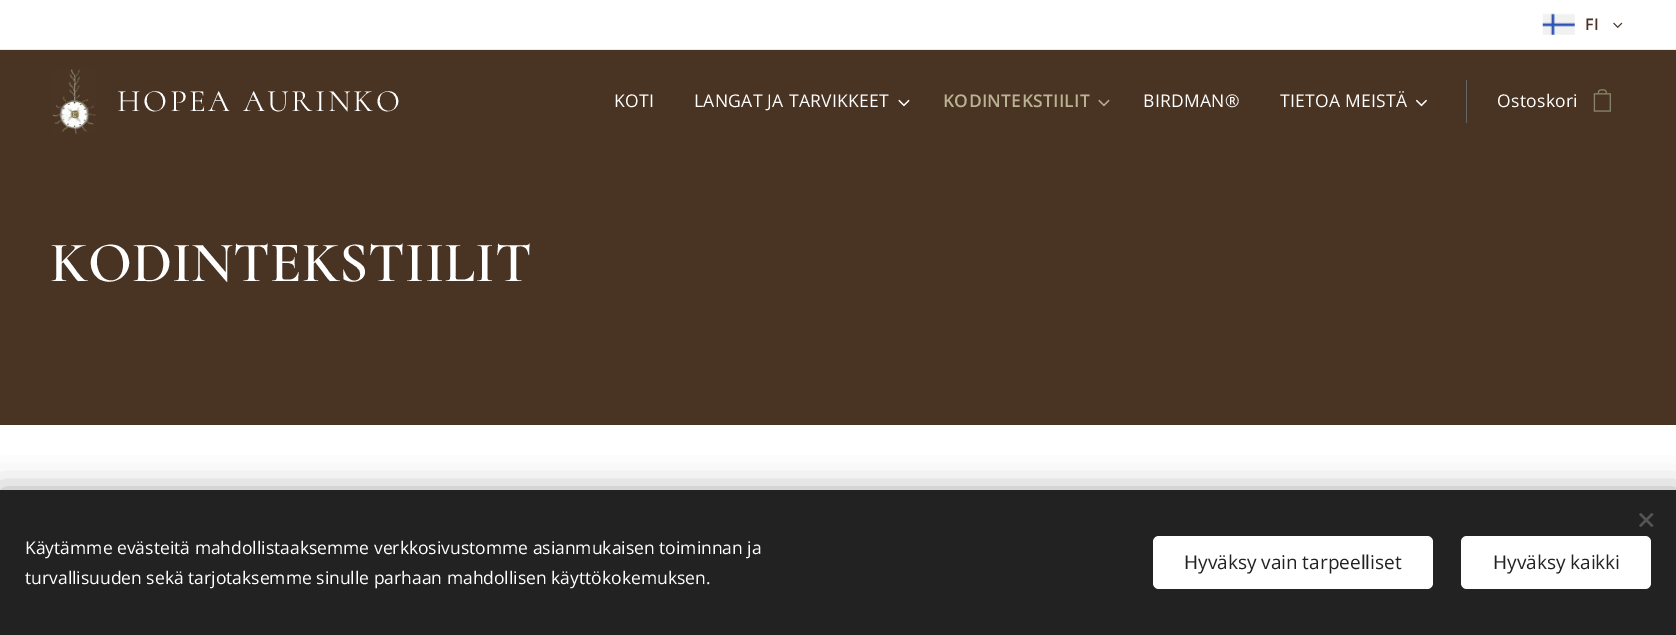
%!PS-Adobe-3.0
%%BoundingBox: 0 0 1676 635
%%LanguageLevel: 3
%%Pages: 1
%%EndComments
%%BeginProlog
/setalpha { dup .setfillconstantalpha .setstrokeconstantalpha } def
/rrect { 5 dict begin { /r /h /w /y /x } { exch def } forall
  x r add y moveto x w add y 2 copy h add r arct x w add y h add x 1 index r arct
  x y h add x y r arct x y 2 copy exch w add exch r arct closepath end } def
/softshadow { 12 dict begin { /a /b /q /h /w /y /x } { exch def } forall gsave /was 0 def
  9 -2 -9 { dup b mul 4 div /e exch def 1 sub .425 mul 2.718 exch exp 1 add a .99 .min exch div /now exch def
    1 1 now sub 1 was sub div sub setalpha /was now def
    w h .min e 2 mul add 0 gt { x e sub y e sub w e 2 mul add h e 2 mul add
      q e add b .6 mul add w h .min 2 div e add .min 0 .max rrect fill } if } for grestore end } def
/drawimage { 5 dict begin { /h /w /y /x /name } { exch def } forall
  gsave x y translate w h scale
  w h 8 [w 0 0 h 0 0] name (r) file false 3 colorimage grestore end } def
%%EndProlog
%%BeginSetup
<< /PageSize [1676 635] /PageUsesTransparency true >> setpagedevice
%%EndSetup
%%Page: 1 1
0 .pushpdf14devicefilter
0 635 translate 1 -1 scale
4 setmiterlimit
1 setgray
0 0 1676 635 rectfill
(images/1.raw) 1542 13 33 22 drawimage
(images/2.raw) 1613 22 10 6 drawimage
0.91 setgray
0 49 1676 1 rectfill
0.286 0.2 0.137 setrgbcolor
0 50 1676 375 rectfill
(images/3.raw) 52 69 44 65 drawimage
(images/4.raw) 898 99 12 8 drawimage
(images/5.raw) 1098 99 12 8 drawimage
(images/6.raw) 1415 99 12 8 drawimage
0.4 setgray
1466 80 1 43 rectfill
(images/7.raw) 1593 89 18 23 drawimage
0 setgray
0 490 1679 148 0 15.5 0.33 softshadow
0.133 setgray
0 490 1676 145 rectfill
0.333 setgray
newpath 1639 525.5 moveto 1651.5 513 lineto 1653.5 514.5 lineto 1641 527 lineto closepath fill
newpath 1641 513 moveto 1653.5 525.5 lineto 1651.5 527 lineto 1639 514.5 lineto closepath fill
1 setgray
1153 536 280 53 6 rrect fill
1461 536 190 53 6 rrect fill
/OpenSans-SemiBold [16 0 0 -16 0 0] selectfont
0.286 0.2 0.137 setrgbcolor
1585 30 moveto (FI) show
/Cormorant-Regular [31.25 0 0 -31.25 0 0] selectfont
1 setgray
117 111 moveto 2.5 0 (HOPEA AURINKO) ashow
/OpenSans-Regular [17.5 0 0 -17.5 0 0] selectfont
614 107 moveto 0.3 0 (KOTI) ashow
694 107 moveto 0.3 0 (LANGAT JA TARVIKKEET) ashow
/OpenSans-SemiBold [17.5 0 0 -17.5 0 0] selectfont
0.729 0.702 0.576 setrgbcolor
943 107 moveto 0.3 0 (KODINTEKSTIILIT) ashow
/OpenSans-Regular [17.5 0 0 -17.5 0 0] selectfont
1 setgray
1143 107 moveto 0.3 0 (BIRDMAN®) ashow
1280 107 moveto 0.3 0 (TIETOA MEISTÄ) ashow
1497 107 moveto 0.3 0 (Ostoskori) ashow
/Cormorant-SemiBold [57.5 0 0 -57.5 0 0] selectfont
50 281 moveto (KODINTEKSTIILIT) show
/OpenSans-Regular [17.5 0 0 -17.5 0 0] selectfont
25 554 moveto (Käytämme evästeitä mahdollistaaksemme verkkosivustomme asianmukaisen toiminnan ja) show
25 584 moveto (turvallisuuden sekä tarjotaksemme sinulle parhaan mahdollisen käyttökokemuksen.) show
/OpenSans-Regular [19 0 0 -19 0 0] selectfont
0.133 setgray
1184 569 moveto (Hyväksy vain tarpeelliset) show
1493 569 moveto (Hyväksy kaikki) show
.poppdf14devicefilter showpage
%%EOF
